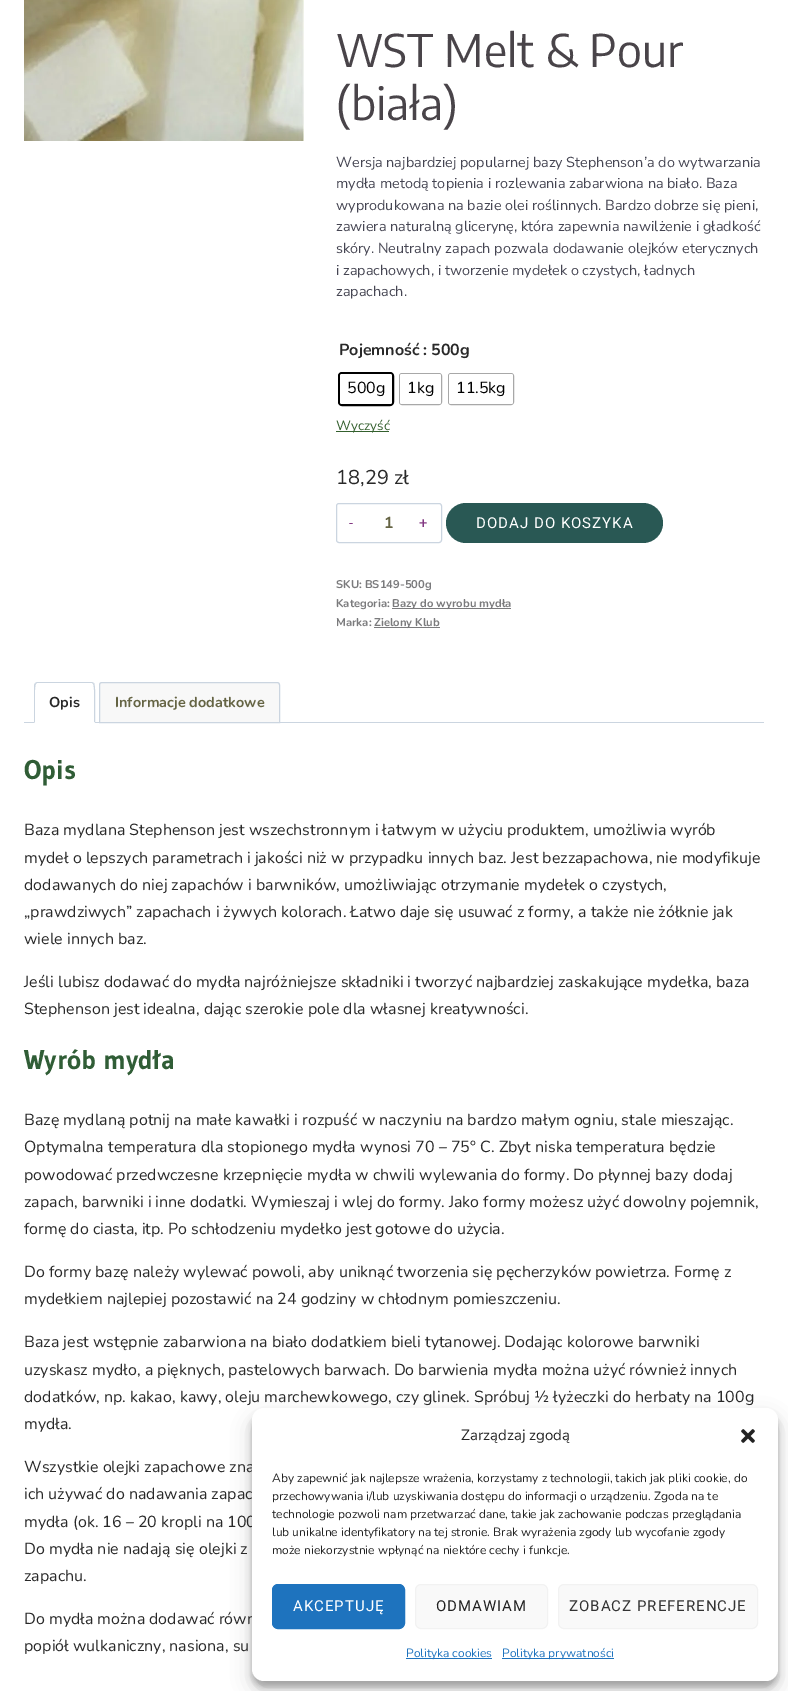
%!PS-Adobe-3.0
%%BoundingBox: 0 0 788 1691
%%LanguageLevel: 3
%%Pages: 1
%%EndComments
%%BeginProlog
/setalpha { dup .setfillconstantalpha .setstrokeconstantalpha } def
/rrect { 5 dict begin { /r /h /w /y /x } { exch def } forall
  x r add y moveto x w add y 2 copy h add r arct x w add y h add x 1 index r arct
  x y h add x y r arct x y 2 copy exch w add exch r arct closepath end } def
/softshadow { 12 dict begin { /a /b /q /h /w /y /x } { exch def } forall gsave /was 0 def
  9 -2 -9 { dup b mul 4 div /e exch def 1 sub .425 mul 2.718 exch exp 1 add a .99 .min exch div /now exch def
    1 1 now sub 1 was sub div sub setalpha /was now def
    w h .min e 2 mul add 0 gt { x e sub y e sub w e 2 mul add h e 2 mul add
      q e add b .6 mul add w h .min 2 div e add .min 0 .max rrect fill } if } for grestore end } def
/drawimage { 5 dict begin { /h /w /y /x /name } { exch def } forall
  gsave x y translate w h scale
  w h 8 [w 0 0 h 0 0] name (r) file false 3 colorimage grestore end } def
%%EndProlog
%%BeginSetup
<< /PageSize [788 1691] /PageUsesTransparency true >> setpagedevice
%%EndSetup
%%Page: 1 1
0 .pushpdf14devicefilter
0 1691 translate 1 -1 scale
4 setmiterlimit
1 setgray
0 0 788 1691 rectfill
(images/1.raw) 24 0 280 141 drawimage
0 setgray
2 setlinewidth
339 373 54 32 3 rrect stroke
1 setgray
340 374 52 30 2 rrect fill
0.659 setgray
1 setlinewidth
399.5 373.5 42 31 2.5 rrect stroke
1 setgray
400 374 41 30 2 rrect fill
0.659 setgray
448.5 373.5 65 31 2.5 rrect stroke
1 setgray
449 374 64 30 2 rrect fill
0.204 0.376 0.18 setrgbcolor
336 431 53 1 rectfill
0.796 0.835 0.878 setrgbcolor
336.5 503.5 105 39 2.5 rrect stroke
0.161 0.345 0.329 setrgbcolor
446 503 217 40 20 rrect fill
0.478 0.478 0.486 setrgbcolor
392 608 119 1 rectfill
374 627 66 1 rectfill
0.796 0.835 0.878 setrgbcolor
24 722 740 1 rectfill
1 setgray
newpath 37 682 moveto 92 682 lineto 93.5 682 95 683.5 95 685 curveto 95 723 lineto 34 723 lineto 34 685 lineto 34 683.5 35.5 682 37 682 curveto closepath fill
0.796 0.835 0.878 setrgbcolor
newpath 37 682 moveto 35 683 lineto 36 684 lineto 37 683 lineto 92 683 lineto 93 684 lineto 94 683 lineto 92 682 lineto closepath fill
newpath 95 723 moveto 95 718 96 685 94 683 curveto 93 684 lineto 95 685 94 717 94 722 curveto closepath fill
1 setgray
newpath 95 723 moveto 94 722 lineto 35 722 lineto 34 723 lineto closepath fill
0.796 0.835 0.878 setrgbcolor
newpath 34 723 moveto 35 722 lineto 35 717 34 685 36 684 curveto 35 683 lineto 34 685 lineto closepath fill
0.973 setgray
newpath 102 682.5 moveto 277 682.5 lineto 278.5 682.5 279.5 683.5 279.5 685 curveto 279.5 722.5 lineto 99.5 722.5 lineto 99.5 685 lineto 99.5 683.5 100.5 682.5 102 682.5 curveto closepath gsave fill grestore
0.796 0.835 0.878 setrgbcolor
stroke
0 setgray
252 1414 526 273 12 3 0.23 softshadow
252 1418 526 273 12 10 0.19 softshadow
/EncodeSansCondensed-Thin [44.75 0 0 -44.75 0 0] selectfont
0.286 0.267 0.286 setrgbcolor
336 67 moveto (WST Melt & Pour) show
336 120 moveto (\(biała\)) show
/NunitoSans-ExtraLight [14.4 0 0 -14.4 0 0] selectfont
0.271 0.271 0.322 setrgbcolor
336 167 moveto (Wersja najbardziej popularnej bazy Stephenson’a do wytwarzania) show
336 188 moveto (mydła metodą topienia i rozlewania zabarwiona na biało. Baza) show
336 210 moveto (wyprodukowana na bazie olei roślinnych. Bardzo dobrze się pieni,) show
336 231 moveto (zawiera naturalną glicerynę, która zapewnia nawilżenie i gładkość) show
336 253 moveto (skóry. Neutralny zapach pozwala dodawanie olejków eterycznych) show
336 275 moveto (i zapachowych, i tworzenie mydełek o czystych, ładnych) show
336 296 moveto (zapachach.) show
/Nunito-Bold [16 0 0 -16 0 0] selectfont
0.161 setgray
339 355 moveto (Pojemność) show
423 355 moveto (: 500g) show
/Nunito-Regular [16 0 0 -16 0 0] selectfont
0 setgray
347 393 moveto (500g) show
407 393 moveto (1kg) show
456 393 moveto (11.5kg) show
/Nunito-Regular [13.5 0 0 -13.5 0 0] selectfont
0.204 0.376 0.18 setrgbcolor
336 430 moveto (Wyczyść) show
/Nunito-Regular [20 0 0 -20 0 0] selectfont
0.161 setgray
336 484 moveto (18,29 zł) show
/Roboto-Regular [15 0 0 -15 0 0] selectfont
0.51 0.22 0.51 setrgbcolor
349 528 moveto 1 0 (-) ashow
/Nunito-Bold [16 0 0 -16 0 0] selectfont
0.396 0.392 0.267 setrgbcolor
384 528 moveto (1) show
/Roboto-Regular [15 0 0 -15 0 0] selectfont
0.51 0.22 0.51 setrgbcolor
419 528 moveto 1 0 (+) ashow
1 setgray
476 528 moveto 1 0 (DODAJ DO KOSZYKA) ashow
/Nunito-Bold [11.25 0 0 -11.25 0 0] selectfont
0.478 0.478 0.486 setrgbcolor
336 588 moveto (SKU: BS149-500g) show
336 607 moveto (Kategoria:) show
392 607 moveto (Bazy do wyrobu mydła) show
336 626 moveto (Marka:) show
374 626 moveto (Zielony Klub) show
/Nunito-Bold [14.4 0 0 -14.4 0 0] selectfont
0.161 setgray
49 707 moveto (Opis) show
0.396 0.392 0.267 setrgbcolor
115 707 moveto (Informacje dodatkowe) show
/Gudea-Bold [27 0 0 -27 0 0] selectfont
0.188 0.365 0.212 setrgbcolor
24 779 moveto (Opis) show
/Nunito-Regular [16 0 0 -16 0 0] selectfont
0.161 setgray
24 835 moveto (Baza mydlana Stephenson jest wszechstronnym i łatwym w użyciu produktem, umożliwia wyrób) show
24 863 moveto (mydeł o lepszych parametrach i jakości niż w przypadku innych baz. Jest bezzapachowa, nie modyfikuje) show
24 890 moveto (dodawanych do niej zapachów i barwników, umożliwiając otrzymanie mydełek o czystych,) show
24 917 moveto („prawdziwych” zapachach i żywych kolorach. Łatwo daje się usuwać z formy, a także nie żółknie jak) show
24 944 moveto (wiele innych baz.) show
24 987 moveto (Jeśli lubisz dodawać do mydła najróżniejsze składniki i tworzyć najbardziej zaskakujące mydełka, baza) show
24 1014 moveto (Stephenson jest idealna, dając szerokie pole dla własnej kreatywności.) show
/Gudea-Bold [27 0 0 -27 0 0] selectfont
0.188 0.365 0.212 setrgbcolor
24 1069 moveto (Wyrób mydła) show
/Nunito-Regular [16 0 0 -16 0 0] selectfont
0.161 setgray
24 1125 moveto (Bazę mydlaną potnij na małe kawałki i rozpuść w naczyniu na bardzo małym ogniu, stale mieszając.) show
24 1152 moveto (Optymalna temperatura dla stopionego mydła wynosi 70 – 75° C. Zbyt niska temperatura będzie) show
24 1180 moveto (powodować przedwczesne krzepnięcie mydła w chwili wylewania do formy. Do płynnej bazy dodaj) show
24 1207 moveto (zapach, barwniki i inne dodatki. Wymieszaj i wlej do formy. Jako formy możesz użyć dowolny pojemnik,) show
24 1234 moveto (formę do ciasta, itp. Po schłodzeniu mydełko jest gotowe do użycia.) show
24 1277 moveto (Do formy bazę należy wylewać powoli, aby uniknąć tworzenia się pęcherzyków powietrza. Formę z) show
24 1304 moveto (mydełkiem najlepiej pozostawić na 24 godziny w chłodnym pomieszczeniu.) show
24 1347 moveto (Baza jest wstępnie zabarwiona na biało dodatkiem bieli tytanowej. Dodając kolorowe barwniki) show
24 1375 moveto (uzyskasz mydło, a pięknych, pastelowych barwach. Do barwienia mydła można użyć również innych) show
24 1402 moveto (dodatków, np. kakao, kawy, oleju marchewkowego, czy glinek. Spróbuj ½ łyżeczki do herbaty na 100g) show
24 1429 moveto (mydła.) show
24 1472 moveto (Wszystkie olejki zapachowe zna) show
24 1499 moveto (ich używać do nadawania zapac) show
24 1527 moveto (mydła \(ok. 16 – 20 kropli na 100) show
24 1554 moveto (Do mydła nie nadają się olejki z) show
24 1581 moveto (zapachu.) show
24 1624 moveto (Do mydła można dodawać równ) show
24 1651 moveto (popiół wulkaniczny, nasiona, su) show
1 setgray
252 1408 526 273 12 rrect fill
/Nunito-Regular [15 0 0 -15 0 0] selectfont
0.133 setgray
461 1440 moveto (Zarządzaj zgodą) show
(images/2.raw) 741 1429 14 14 drawimage
/Nunito-Regular [12 0 0 -12 0 0] selectfont
272 1482 moveto (Aby zapewnić jak najlepsze wrażenia, korzystamy z technologii, takich jak pliki cookie, do) show
272 1500 moveto (przechowywania i/lub uzyskiwania dostępu do informacji o urządzeniu. Zgoda na te) show
272 1518 moveto (technologie pozwoli nam przetwarzać dane, takie jak zachowanie podczas przeglądania) show
272 1536 moveto (lub unikalne identyfikatory na tej stronie. Brak wyrażenia zgody lub wycofanie zgody) show
272 1554 moveto (może niekorzystnie wpłynąć na niektóre cechy i funkcje.) show
0.118 0.451 0.745 setrgbcolor
272.5 1584.5 132 44 5.5 rrect gsave fill grestore
stroke
/Roboto-Regular [15 0 0 -15 0 0] selectfont
1 setgray
293 1611 moveto 1 0 (AKCEPTUJĘ) ashow
0.976 setgray
415.5 1584.5 132 44 5.5 rrect gsave fill grestore
0.949 setgray
stroke
0.133 setgray
436 1611 moveto 1 0 (ODMAWIAM) ashow
0.976 setgray
558.5 1584.5 199 44 5.5 rrect gsave fill grestore
0.949 setgray
stroke
0.2 setgray
569 1611 moveto 1 0 (ZOBACZ PREFERENCJE) ashow
0.118 0.451 0.745 setrgbcolor
406 1658 86 1 rectfill
/Nunito-Regular [12 0 0 -12 0 0] selectfont
406 1657 moveto (Polityka cookies) show
502 1658 112 1 rectfill
502 1657 moveto (Polityka prywatności) show
.poppdf14devicefilter showpage
%%EOF
